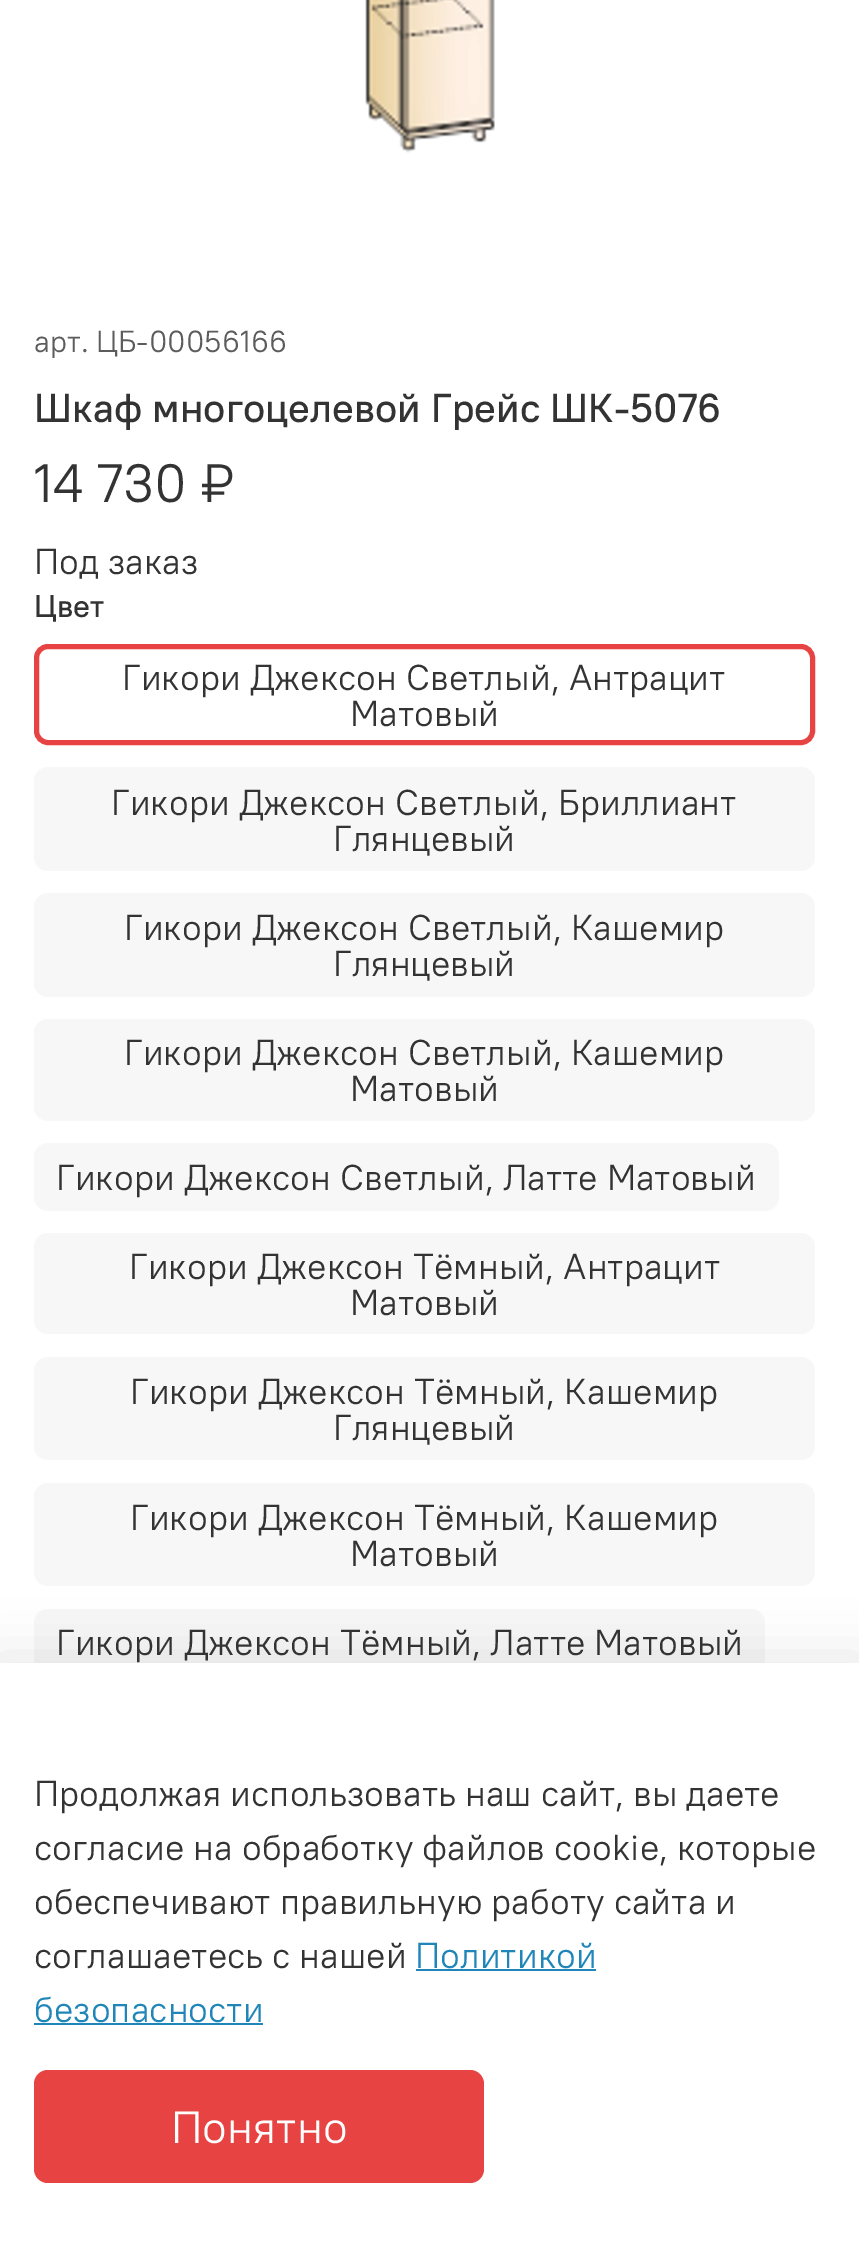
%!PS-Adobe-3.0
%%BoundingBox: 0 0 859 2251
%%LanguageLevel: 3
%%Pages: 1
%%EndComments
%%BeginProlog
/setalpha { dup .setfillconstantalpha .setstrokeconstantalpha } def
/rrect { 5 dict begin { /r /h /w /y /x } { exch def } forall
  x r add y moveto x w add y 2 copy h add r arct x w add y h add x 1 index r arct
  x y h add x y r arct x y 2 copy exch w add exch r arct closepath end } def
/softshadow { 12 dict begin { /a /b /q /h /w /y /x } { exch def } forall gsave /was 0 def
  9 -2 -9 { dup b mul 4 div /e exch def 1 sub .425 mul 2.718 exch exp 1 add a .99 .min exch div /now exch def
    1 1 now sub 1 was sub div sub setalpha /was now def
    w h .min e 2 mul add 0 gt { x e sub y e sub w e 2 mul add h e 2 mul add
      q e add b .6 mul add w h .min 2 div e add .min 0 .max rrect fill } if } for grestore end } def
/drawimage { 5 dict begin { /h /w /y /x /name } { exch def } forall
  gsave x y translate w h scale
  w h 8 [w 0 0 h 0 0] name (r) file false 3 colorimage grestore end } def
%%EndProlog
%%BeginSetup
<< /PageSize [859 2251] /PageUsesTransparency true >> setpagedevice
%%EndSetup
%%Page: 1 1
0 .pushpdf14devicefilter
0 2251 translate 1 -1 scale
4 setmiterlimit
1 setgray
0 0 859 2251 rectfill
(images/1.raw) 365 0 130 153 drawimage
0.906 0.263 0.263 setrgbcolor
5 setlinewidth
36.5 646.5 776 96 11.5 rrect stroke
0.969 setgray
34 767 781 104 14 rrect fill
34 893 781 104 14 rrect fill
34 1019 781 102 14 rrect fill
34 1143 745 68 14 rrect fill
34 1233 781 101 14 rrect fill
34 1357 781 103 14 rrect fill
34 1483 781 103 14 rrect fill
34 1609 731 65 14 rrect fill
0 setgray
-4 1656 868 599 0 26 0.09 softshadow
1 setgray
0 1663 859 588 rectfill
0.125 0.525 0.725 setrgbcolor
416 1969 180 2 rectfill
34 2023 229 2 rectfill
0.906 0.263 0.263 setrgbcolor
34 2070 450 113 14 rrect fill
/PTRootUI-Regular [30.5 0 0 -30.5 0 0] selectfont
0.361 setgray
34 352 moveto (арт. ЦБ-00056166) show
/PTRootUI-Medium [40.5 0 0 -40.5 0 0] selectfont
0.2 setgray
34 422 moveto (Шкаф многоцелевой Грейс ШК-5076) show
/PTRootUI-Regular [54 0 0 -54 0 0] selectfont
34 502 moveto (14 730 ₽) show
/PTRootUI-Regular [36 0 0 -36 0 0] selectfont
34 574 moveto (Под заказ) show
/PTRootUI-Medium [31.5 0 0 -31.5 0 0] selectfont
34 617 moveto (Цвет) show
/PTRootUI-Regular [36 0 0 -36 0 0] selectfont
122 690 moveto (Гикори Джексон Светлый, Антрацит) show
350 726 moveto (Матовый) show
111 815 moveto (Гикори Джексон Светлый, Бриллиант) show
333 851 moveto (Глянцевый) show
124 940 moveto (Гикори Джексон Светлый, Кашемир) show
333 976 moveto (Глянцевый) show
124 1065 moveto (Гикори Джексон Светлый, Кашемир) show
350 1101 moveto (Матовый) show
56 1190 moveto (Гикори Джексон Светлый, Латте Матовый) show
129 1279 moveto (Гикори Джексон Тёмный, Антрацит) show
350 1315 moveto (Матовый) show
130 1404 moveto (Гикори Джексон Тёмный, Кашемир) show
333 1440 moveto (Глянцевый) show
130 1530 moveto (Гикори Джексон Тёмный, Кашемир) show
350 1566 moveto (Матовый) show
56 1655 moveto (Гикори Джексон Тёмный, Латте Матовый) show
34 1806 moveto (Продолжая использовать наш сайт, вы даете) show
34 1860 moveto (согласие на обработку файлов cookie, которые) show
34 1914 moveto (обеспечивают правильную работу сайта и) show
34 1968 moveto (соглашаетесь с нашей) show
0.125 0.525 0.725 setrgbcolor
415 1968 moveto (Политикой) show
34 2022 moveto (безопасности) show
/PTRootUI-Regular [45 0 0 -45 0 0] selectfont
1 setgray
171 2143 moveto (Понятно) show
.poppdf14devicefilter showpage
%%EOF
